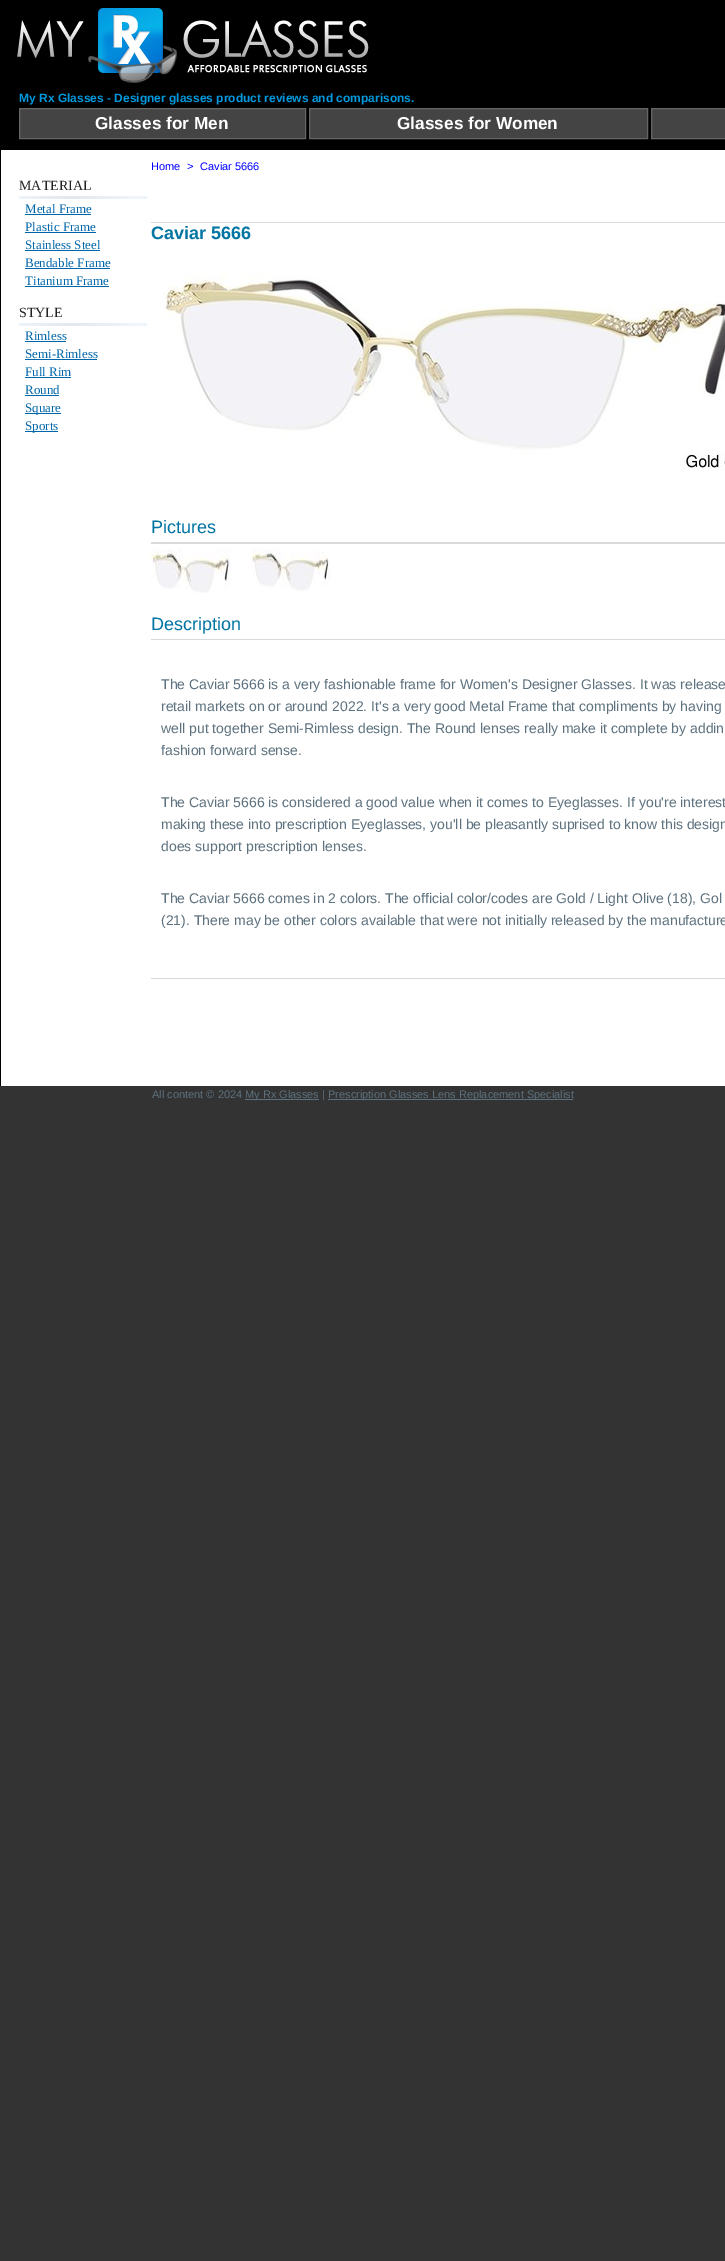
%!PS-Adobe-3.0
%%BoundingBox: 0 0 725 2261
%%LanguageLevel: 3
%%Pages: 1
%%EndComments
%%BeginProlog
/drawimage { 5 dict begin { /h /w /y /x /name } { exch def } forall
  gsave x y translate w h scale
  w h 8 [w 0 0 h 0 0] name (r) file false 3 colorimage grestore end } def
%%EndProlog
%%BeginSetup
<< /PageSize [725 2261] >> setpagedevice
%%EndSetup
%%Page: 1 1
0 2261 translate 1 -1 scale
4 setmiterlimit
0.2 setgray
0 0 725 2261 rectfill
1 setgray
1 150 724 936 rectfill
0 setgray
0 0 1 1086 rectfill
1 0 724 150 rectfill
(images/1.raw) 17 8 352 75 drawimage
0.267 setgray
newpath 19.5 108.5 moveto 305.5 108.5 lineto 305.5 138.5 lineto 19.5 138.5 lineto closepath gsave fill grestore
0.4 setgray
stroke
0.267 setgray
newpath 309.5 108.5 moveto 647.5 108.5 lineto 647.5 138.5 lineto 309.5 138.5 lineto closepath gsave fill grestore
0.4 setgray
stroke
0.267 setgray
newpath 651.5 108.5 moveto 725.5 108.5 lineto 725.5 138.5 lineto 651.5 138.5 lineto closepath gsave fill grestore
0.4 setgray
stroke
(images/2.raw) 19 196 128 3 drawimage
0 0.4 0.667 setrgbcolor
25 214 66 1 rectfill
25 232 71 1 rectfill
25 250 75 1 rectfill
25 268 85 1 rectfill
25 286 84 1 rectfill
(images/2.raw) 19 323 128 3 drawimage
25 341 41 1 rectfill
25 359 72 1 rectfill
25 377 46 1 rectfill
25 395 34 1 rectfill
25 413 36 1 rectfill
25 431 33 1 rectfill
0.851 setgray
151 222 574 1 rectfill
(images/3.raw) 163 270 562 200 drawimage
151 542 574 2 rectfill
(images/4.raw) 151 549 80 44 drawimage
(images/5.raw) 251 549 80 42 drawimage
151 639 574 1 rectfill
151 978 574 1 rectfill
0.365 0.443 0.494 setrgbcolor
245 1099 74 1 rectfill
328 1099 245 1 rectfill
/LiberationSans-Bold [12 0 0 -12 0 0] selectfont
0 0.6 0.867 setrgbcolor
19 102 moveto (My Rx Glasses - Designer glasses product reviews and comparisons.) show
/LiberationSans-Bold [17.25 0 0 -17.25 0 0] selectfont
1 setgray
95 129 moveto (Glasses for Men) show
397 129 moveto (Glasses for Women) show
/LiberationSerif-Regular [14 0 0 -14 0 0] selectfont
0.133 setgray
19 190 moveto (MATERIAL) show
/LiberationSerif-Regular [13 0 0 -13 0 0] selectfont
0 0.4 0.667 setrgbcolor
25 213 moveto (Metal Frame) show
25 231 moveto (Plastic Frame) show
25 249 moveto (Stainless Steel) show
25 267 moveto (Bendable Frame) show
25 285 moveto (Titanium Frame) show
/LiberationSerif-Regular [14 0 0 -14 0 0] selectfont
0.133 setgray
19 317 moveto (STYLE) show
/LiberationSerif-Regular [13 0 0 -13 0 0] selectfont
0 0.4 0.667 setrgbcolor
25 340 moveto (Rimless) show
25 358 moveto (Semi-Rimless) show
25 376 moveto (Full Rim) show
25 394 moveto (Round) show
25 412 moveto (Square) show
25 430 moveto (Sports) show
/LiberationSans-Regular [11 0 0 -11 0 0] selectfont
0 0 1 setrgbcolor
151 170 moveto (Home) show
187 170 moveto (>) show
200 170 moveto (Caviar 5666) show
/LiberationSans-Bold [18 0 0 -18 0 0] selectfont
0 0.455 0.639 setrgbcolor
151 239 moveto (Caviar 5666) show
/LiberationSans-Regular [18 0 0 -18 0 0] selectfont
151 533 moveto (Pictures) show
151 630 moveto (Description) show
/LiberationSans-Regular [14 0 0 -14 0 0] selectfont
0.365 0.443 0.494 setrgbcolor
161 689 moveto (The Caviar 5666 is a very fashionable frame for Women's Designer Glasses. It was release) show
161 711 moveto (retail markets on or around 2022. It's a very good Metal Frame that compliments by having) show
161 733 moveto (well put together Semi-Rimless design. The Round lenses really make it complete by addin) show
161 755 moveto (fashion forward sense.) show
161 807 moveto (The Caviar 5666 is considered a good value when it comes to Eyeglasses. If you're interest) show
161 829 moveto (making these into prescription Eyeglasses, you'll be pleasantly suprised to know this design) show
161 851 moveto (does support prescription lenses.) show
161 903 moveto (The Caviar 5666 comes in 2 colors. The official color/codes are Gold / Light Olive \(18\), Gol) show
161 925 moveto (\(21\). There may be other colors available that were not initially released by the manufacture) show
/LiberationSans-Regular [11 0 0 -11 0 0] selectfont
152 1098 moveto (All content © 2024) show
245 1098 moveto (My Rx Glasses |) show
328 1098 moveto (Prescription Glasses Lens Replacement Specialist) show
showpage
%%EOF
